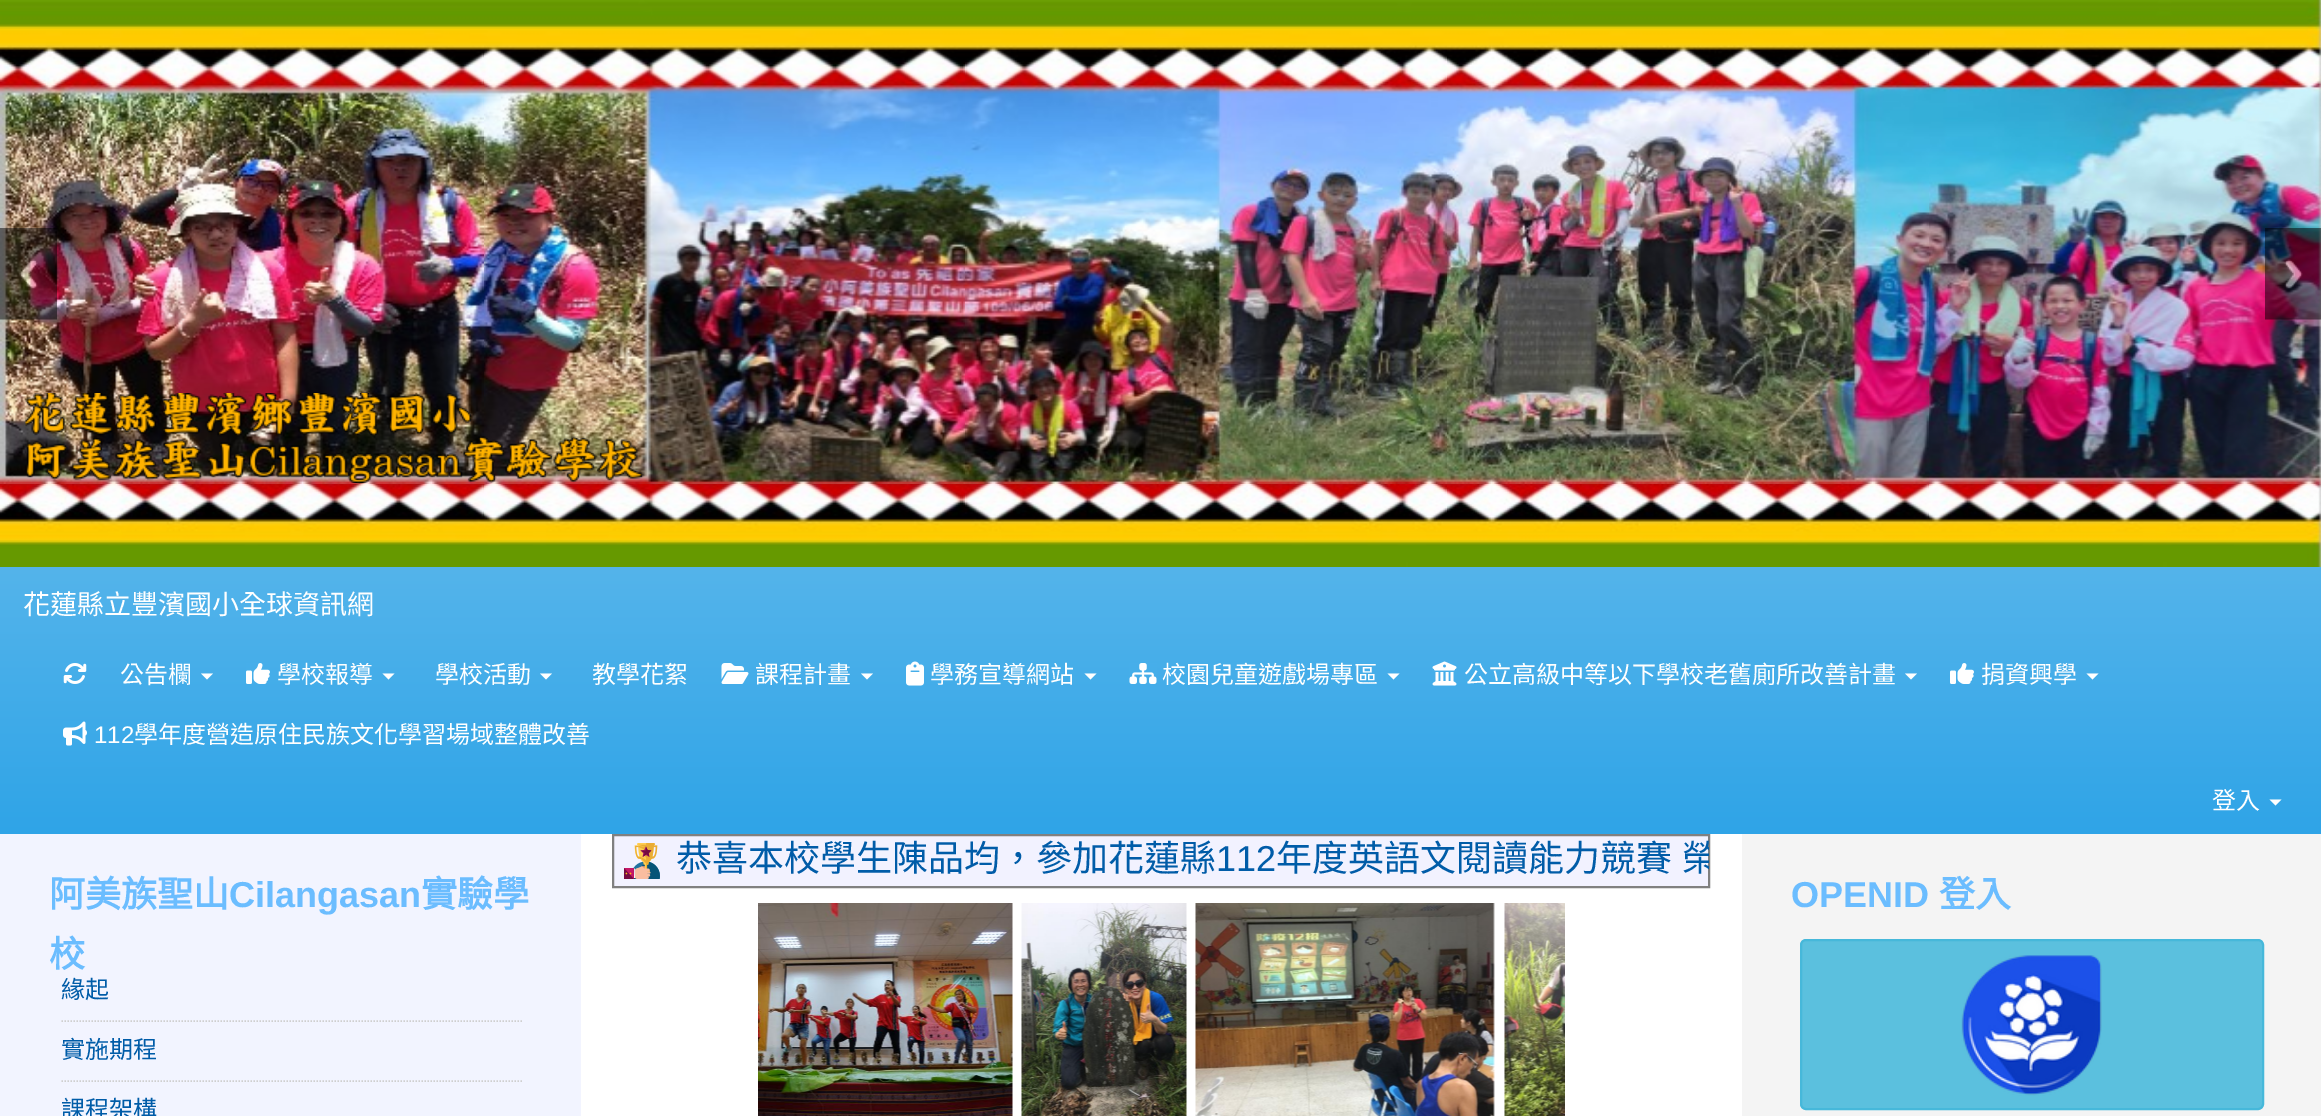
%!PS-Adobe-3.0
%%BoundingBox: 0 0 2321 1116
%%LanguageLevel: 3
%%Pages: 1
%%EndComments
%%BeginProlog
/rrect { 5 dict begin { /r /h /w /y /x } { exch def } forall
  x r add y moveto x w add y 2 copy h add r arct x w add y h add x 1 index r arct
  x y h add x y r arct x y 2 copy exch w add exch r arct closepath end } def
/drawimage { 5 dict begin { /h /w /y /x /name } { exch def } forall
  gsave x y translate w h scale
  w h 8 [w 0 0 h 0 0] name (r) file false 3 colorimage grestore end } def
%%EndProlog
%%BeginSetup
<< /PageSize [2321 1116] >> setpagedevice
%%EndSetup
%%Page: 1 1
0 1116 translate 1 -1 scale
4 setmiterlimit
1 setgray
0 0 2321 1116 rectfill
(images/1.raw) 2320 2 1 565 drawimage
(images/2.raw) 0 0 2321 567 drawimage
(images/3.raw) 0 228 57 92 drawimage
(images/4.raw) 2265 228 56 92 drawimage
(images/5.raw) 25 393 619 90 drawimage
gsave newpath 0 567 moveto 2321 567 lineto 2321 834 lineto 0 834 lineto closepath clip newpath
<< /ShadingType 2 /ColorSpace /DeviceRGB /Coords [1161 567 1161 834] /Extend [true true] /Function << /FunctionType 2 /Domain [0 1] /C0 [0.329 0.706 0.922] /C1 [0.184 0.643 0.906] /N 1 >> >> shfill grestore
(images/6.raw) 63 663 24 21 drawimage
newpath 201 673.5 moveto 213 673.5 lineto 207 679.5 lineto closepath fill
(images/7.raw) 246 663 24 21 drawimage
newpath 382.5 673.5 moveto 394.5 673.5 lineto 388.5 679.5 lineto closepath fill
newpath 540 673.5 moveto 552 673.5 lineto 546 679.5 lineto closepath fill
(images/8.raw) 721 663 28 21 drawimage
newpath 861 673.5 moveto 873 673.5 lineto 867 679.5 lineto closepath fill
(images/9.raw) 906 661 18 25 drawimage
newpath 1084.5 673.5 moveto 1096.5 673.5 lineto 1090.5 679.5 lineto closepath fill
(images/10.raw) 1129 663 28 21 drawimage
newpath 1387.5 673.5 moveto 1399.5 673.5 lineto 1393.5 679.5 lineto closepath fill
(images/11.raw) 1432 661 25 25 drawimage
newpath 1905 673.5 moveto 1917 673.5 lineto 1911 679.5 lineto closepath fill
(images/7.raw) 1950 663 24 21 drawimage
newpath 2086.5 673.5 moveto 2098.5 673.5 lineto 2092.5 679.5 lineto closepath fill
(images/12.raw) 63 721 24 25 drawimage
newpath 2269.5 799.5 moveto 2281.5 799.5 lineto 2275.5 805.5 lineto closepath fill
0.949 0.949 1 setrgbcolor
newpath 613 835 moveto 1709 835 lineto 1709 887 lineto 613 887 lineto closepath gsave fill grestore
0.502 setgray
2 setlinewidth
stroke
(images/13.raw) 624 843 36 36 drawimage
(images/14.raw) 758 903 255 213 drawimage
(images/15.raw) 1021 903 166 213 drawimage
(images/16.raw) 1195 903 300 213 drawimage
(images/17.raw) 1504 903 61 213 drawimage
0.949 0.957 1 setrgbcolor
0 834 581 282 rectfill
gsave
59 962 463 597 rectclip
0.812 setgray
1.5 setlinewidth
[1.5 1.5] 0 setdash
newpath 61.5 1021 moveto 525 1021 lineto stroke
newpath 61.5 1081 moveto 525 1081 lineto stroke
grestore
0.957 setgray
1742 834 579 282 rectfill
0.357 0.753 0.871 setrgbcolor
1801 940 462 169 5 rrect gsave fill grestore
0.275 0.722 0.855 setrgbcolor
stroke
(images/18.raw) 1961 955 141 141 drawimage
/NotoSansCJKTC-Regular [27 0 0 -27 0 0] selectfont
1 setgray
23 614 moveto (花蓮縣立豐濱國小全球資訊網) show
/NotoSansCJKTC-Regular [24 0 0 -24 0 0] selectfont
120 683 moveto (公告欄) show
277 683 moveto (學校報導) show
435 683 moveto (學校活動) show
592 683 moveto (教學花絮) show
755 683 moveto (課程計畫) show
930 683 moveto (學務宣導網站) show
1162 683 moveto (校園兒童遊戲場專區) show
1464 683 moveto (公立高級中等以下學校老舊廁所改善計畫) show
1981 683 moveto (捐資興學) show
/LiberationSans-Regular [24 0 0 -24 0 0] selectfont
94 743 moveto (112) show
/NotoSansCJKTC-Regular [24 0 0 -24 0 0] selectfont
134 743 moveto (學年度營造原住民族文化學習場域整體改善) show
2212 809 moveto (登入) show
/NotoSansCJKTC-Regular [36 0 0 -36 0 0] selectfont
0 0.361 0.659 setrgbcolor
676 871 moveto (恭喜本校學生陳品均，參加花蓮縣) show
/LiberationSans-Regular [36 0 0 -36 0 0] selectfont
1216 871 moveto (112) show
gsave
614 836 1095 51 rectclip
/NotoSansCJKTC-Regular [36 0 0 -36 0 0] selectfont
1276 871 moveto 2 0 32 (年度英語文閱讀能力競賽 榮) widthshow
grestore
/NotoSansCJKTC-Bold [36 0 0 -36 0 0] selectfont
0.42 0.741 1 setrgbcolor
49 907 moveto (阿美族聖山) show
/LiberationSans-Bold [36 0 0 -36 0 0] selectfont
229 907 moveto (Cilangasan) show
/NotoSansCJKTC-Bold [36 0 0 -36 0 0] selectfont
421 907 moveto (實驗學) show
49 967 moveto (校) show
/NotoSansCJKTC-Regular [24 0 0 -24 0 0] selectfont
0 0.361 0.659 setrgbcolor
61 998 moveto (緣起) show
61 1058 moveto (實施期程) show
61 1118 moveto (課程架構) show
/LiberationSans-Bold [36 0 0 -36 0 0] selectfont
0.42 0.741 1 setrgbcolor
1791 907 moveto (OPENID) show
/NotoSansCJKTC-Bold [36 0 0 -36 0 0] selectfont
1939 907 moveto (登入) show
showpage
%%EOF
